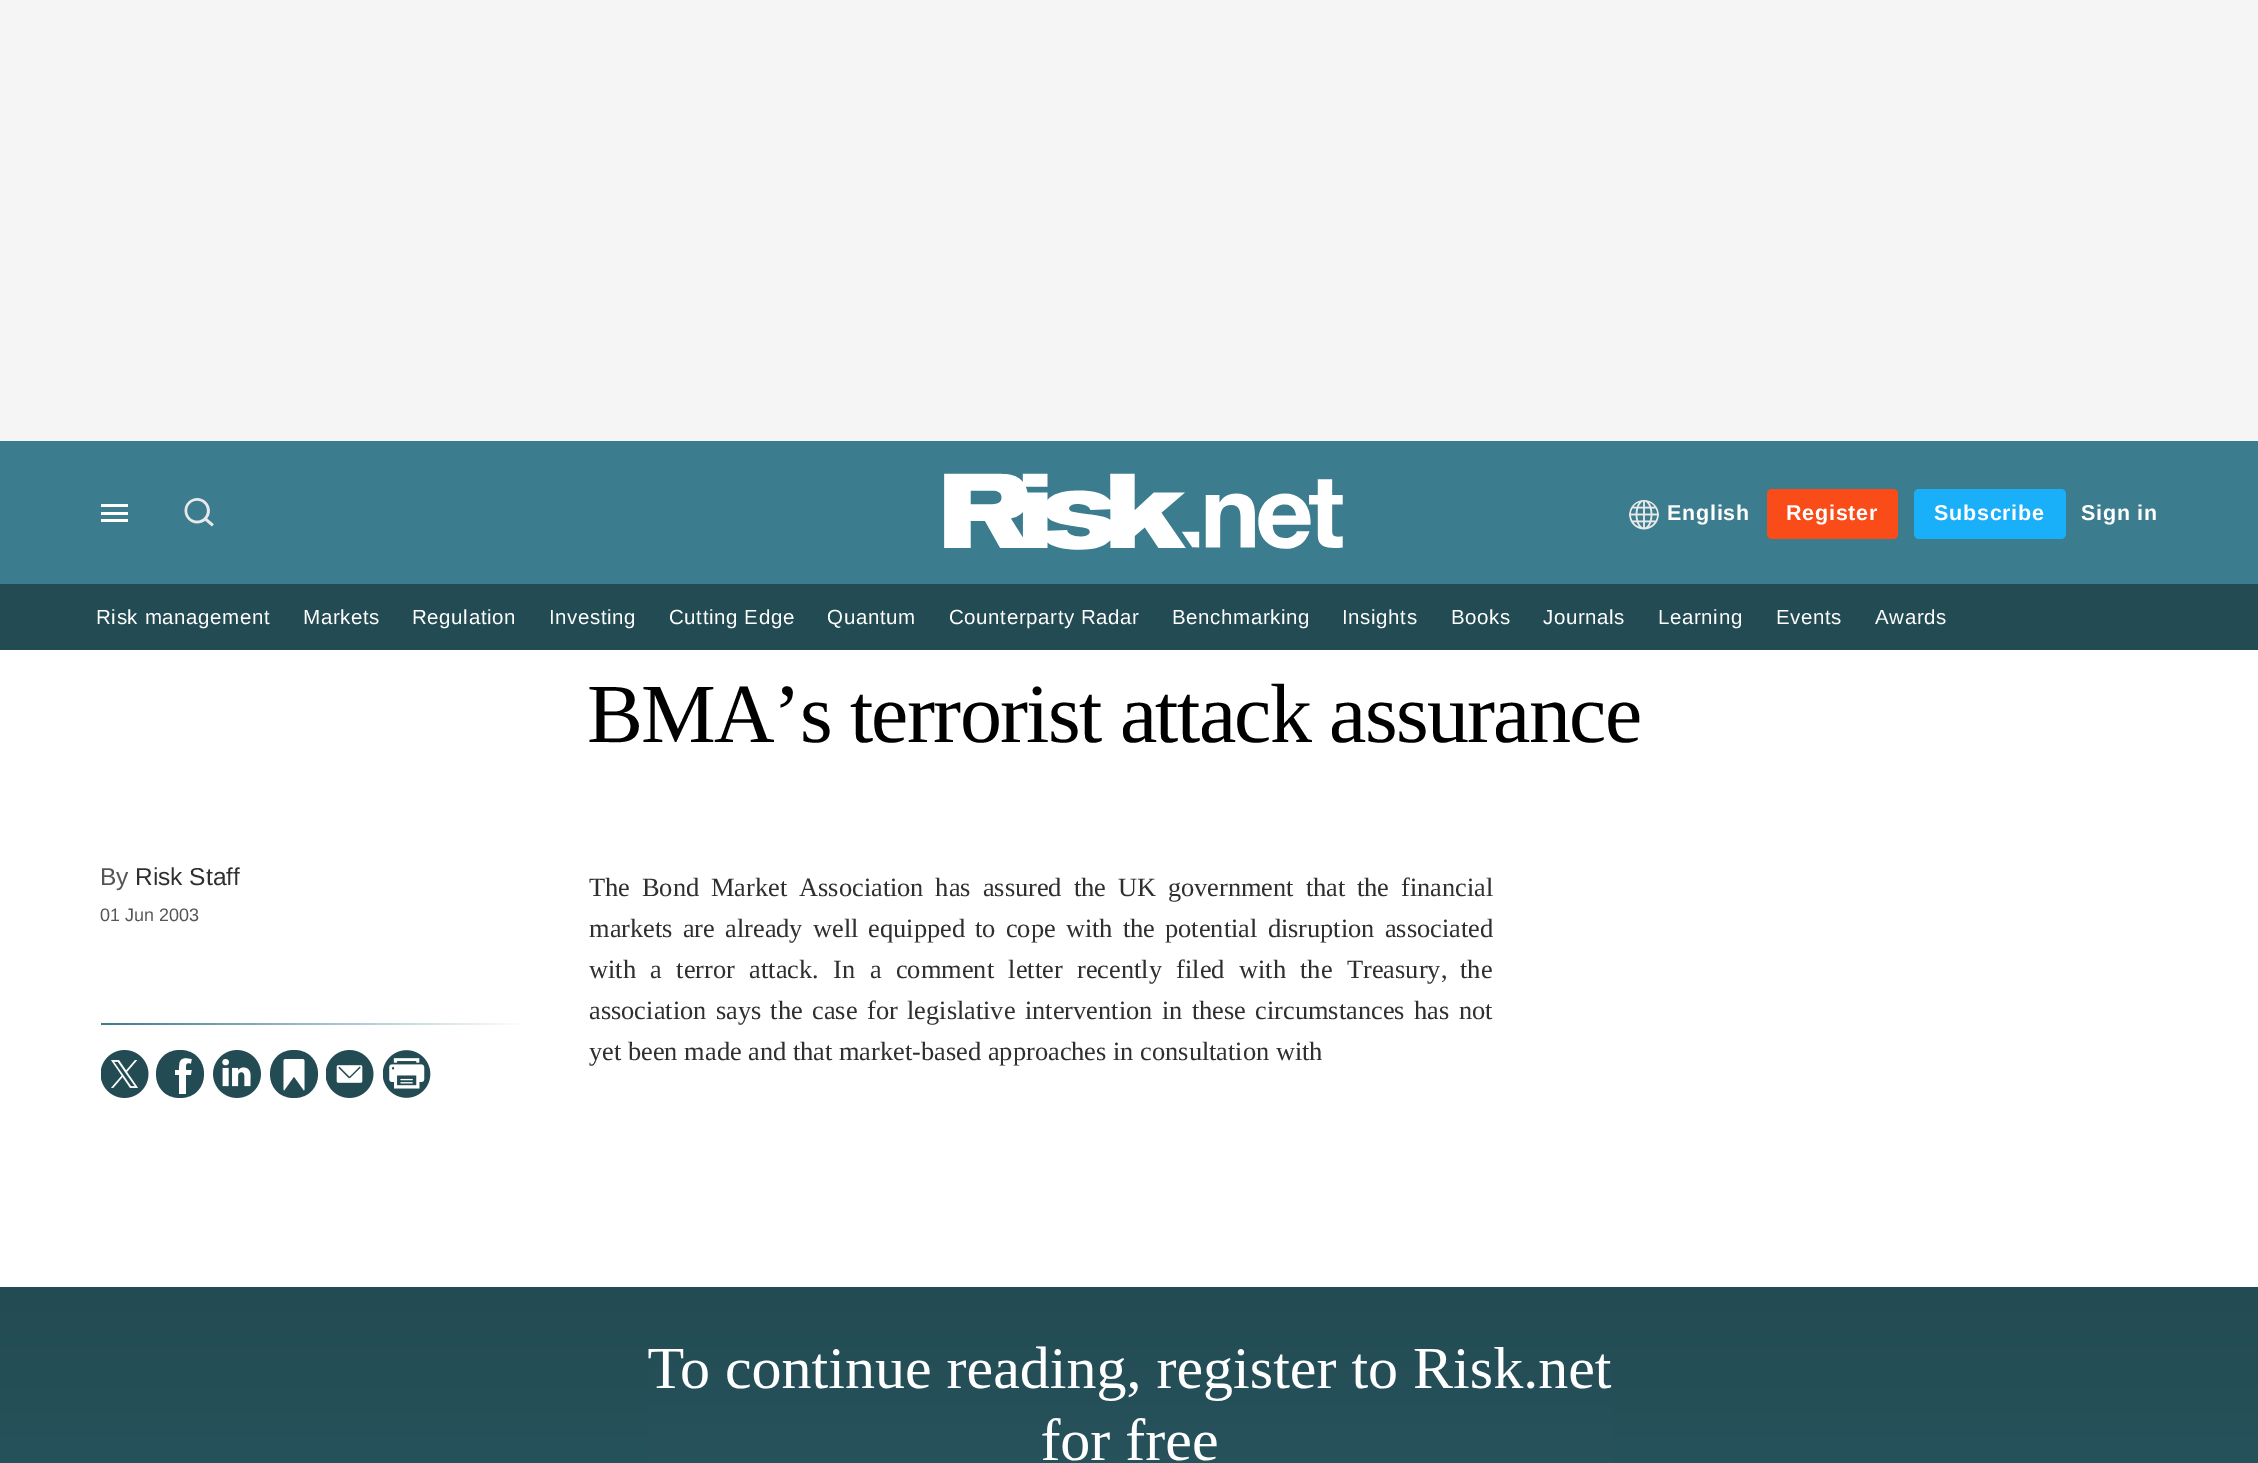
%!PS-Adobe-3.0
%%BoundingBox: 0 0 2258 1463
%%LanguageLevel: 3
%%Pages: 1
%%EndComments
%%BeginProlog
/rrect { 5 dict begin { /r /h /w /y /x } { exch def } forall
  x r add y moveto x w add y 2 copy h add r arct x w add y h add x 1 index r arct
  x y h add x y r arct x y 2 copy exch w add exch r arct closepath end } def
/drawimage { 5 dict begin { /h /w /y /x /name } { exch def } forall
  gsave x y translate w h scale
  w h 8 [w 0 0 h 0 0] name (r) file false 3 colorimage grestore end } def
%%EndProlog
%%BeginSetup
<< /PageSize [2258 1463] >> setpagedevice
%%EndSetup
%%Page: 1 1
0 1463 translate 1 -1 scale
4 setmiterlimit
1 setgray
0 0 2258 1463 rectfill
0.957 0.961 0.957 setrgbcolor
0 0 2258 441 rectfill
0.231 0.486 0.557 setrgbcolor
0 441 2258 143 rectfill
1 setgray
101 512 27 3 rectfill
101 504 27 3 rectfill
101 519 27 3 rectfill
(images/1.raw) 184 498 30 29 drawimage
(images/2.raw) 944 473 399 77 drawimage
(images/3.raw) 1629 500 30 30 drawimage
0.976 0.298 0.094 setrgbcolor
1767 489 131 50 5 rrect fill
0.102 0.686 0.976 setrgbcolor
1914 489 152 50 5 rrect fill
0.137 0.294 0.325 setrgbcolor
0 584 2258 66 rectfill
gsave newpath 101 1023 moveto 525 1023 lineto 525 1025 lineto 101 1025 lineto closepath clip newpath
<< /ShadingType 2 /ColorSpace /DeviceRGB /Coords [101 1024 525 1024] /Extend [true true] /Function << /FunctionType 2 /Domain [0 1] /C0 [0.231 0.486 0.557] /C1 [1 1 1] /N 1 >> >> shfill grestore
(images/4.raw) 101 1050 48 48 drawimage
newpath 180 1050 moveto 148 1050 148 1098 180 1098 curveto 212 1098 212 1050 180 1050 curveto closepath 192 1070 moveto 191 1075 lineto 186 1075 lineto 186 1094 lineto 179 1094 lineto 179 1075 lineto 175 1075 lineto 175 1070 lineto 179 1070 lineto 179 1065 178 1058 186 1058 curveto 192 1059 lineto 191 1064 lineto 186 1062 186 1065 186 1070 curveto closepath fill
(images/5.raw) 213 1050 48 48 drawimage
newpath 294 1050 moveto 326 1050 326 1098 294 1098 curveto 262 1098 262 1050 294 1050 curveto closepath fill
1 setgray
newpath 294 1076.5 moveto 304 1090.5 lineto 304 1090 304.5 1089.5 304.5 1089 curveto 304.5 1061.5 lineto 304.5 1060 303.5 1059 302 1059 curveto 286 1059 lineto 284.5 1059 283.5 1060 283.5 1061.5 curveto 283.5 1089 lineto 284 1090.5 lineto closepath fill
(images/6.raw) 326 1050 48 48 drawimage
(images/7.raw) 383 1050 48 48 drawimage
gsave newpath 0 1287 moveto 2258 1287 lineto 2258 1463 lineto 0 1463 lineto closepath clip newpath
<< /ShadingType 2 /ColorSpace /DeviceRGB /Coords [1130 1287 1130 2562] /Extend [true true] /Function << /FunctionType 2 /Domain [0 1] /C0 [0.137 0.294 0.325] /C1 [0.231 0.486 0.561] /N 1 >> >> shfill grestore
(images/8.raw) 648 1346 964 115 drawimage
/Arimo-Bold [21.5 0 0 -21.5 0 0] selectfont
1667 520 moveto 0.75 0 (English) ashow
1786 520 moveto 0.75 0 (Register) ashow
1934 520 moveto 0.75 0 (Subscribe) ashow
2081 520 moveto 0.75 0 (Sign in) ashow
/Arimo-Regular [20.5 0 0 -20.5 0 0] selectfont
96 624 moveto 0.6 0 (Risk management) ashow
303 624 moveto 0.6 0 (Markets) ashow
412 624 moveto 0.6 0 (Regulation) ashow
549 624 moveto 0.6 0 (Investing) ashow
669 624 moveto 0.6 0 (Cutting Edge) ashow
827 624 moveto 0.6 0 (Quantum) ashow
949 624 moveto 0.6 0 (Counterparty Radar) ashow
1172 624 moveto 0.6 0 (Benchmarking) ashow
1342 624 moveto 0.6 0 (Insights) ashow
1451 624 moveto 0.6 0 (Books) ashow
1543 624 moveto 0.6 0 (Journals) ashow
1658 624 moveto 0.6 0 (Learning) ashow
1776 624 moveto 0.6 0 (Events) ashow
1875 624 moveto 0.6 0 (Awards) ashow
/LiberationSerif-Regular [84 0 0 -84 0 0] selectfont
0 setgray
587 742 moveto -1.7 0 (BMA’s terrorist attack assurance) ashow
/Arimo-Regular [24.5 0 0 -24.5 0 0] selectfont
0.333 setgray
100 885 moveto (By) show
0.184 setgray
135 885 moveto (Risk Staff) show
/Arimo-Regular [18 0 0 -18 0 0] selectfont
0.333 setgray
100 921 moveto (01 Jun 2003) show
/LiberationSerif-Regular [26.4 0 0 -26.4 0 0] selectfont
0.184 setgray
589 896 moveto 5.25 0 32 (The Bond Market Association has assured the UK government that the financial) widthshow
589 937 moveto 3.5 0 32 (markets are already well equipped to cope with the potential disruption associated) widthshow
589 978 moveto 7.75 0 32 (with a terror attack. In a comment letter recently filed with the Treasury,) widthshow
1460 978 moveto (the) show
589 1019 moveto 2.75 0 32 (association says the case for legislative intervention in these circumstances) widthshow
1414 1019 moveto 2.75 0 32 (has not) widthshow
589 1060 moveto (yet been made and that market-based approaches in consultation with) show
showpage
%%EOF
